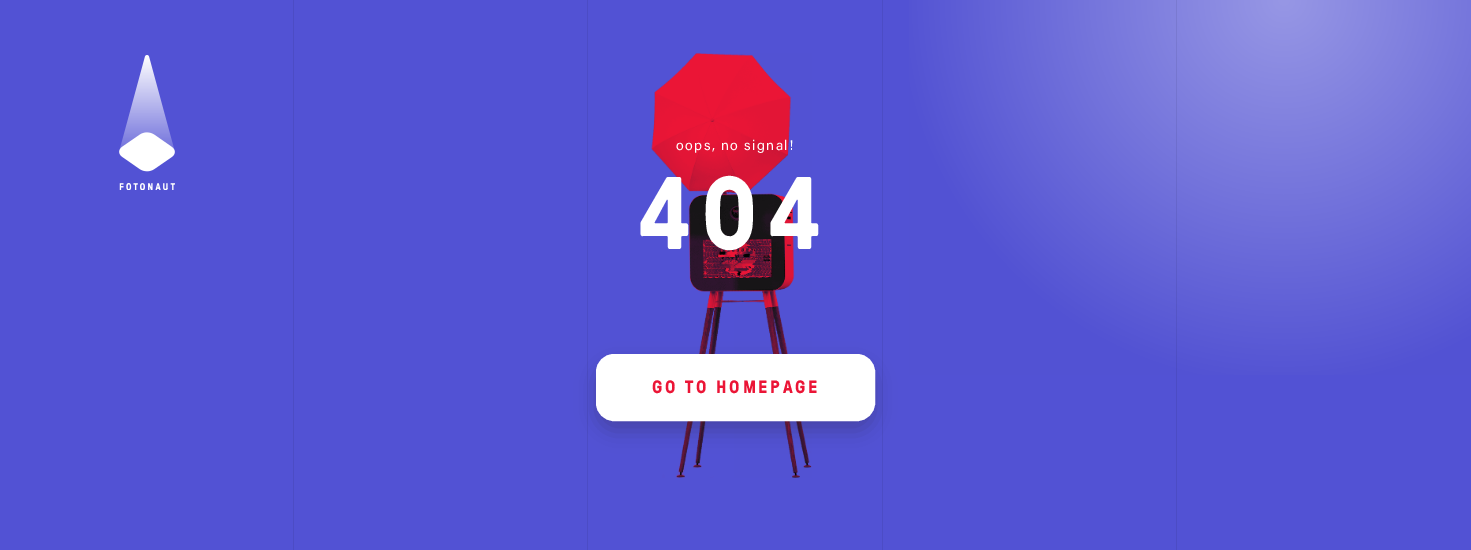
%!PS-Adobe-3.0
%%BoundingBox: 0 0 1471 550
%%LanguageLevel: 3
%%Pages: 1
%%EndComments
%%BeginProlog
/setalpha { dup .setfillconstantalpha .setstrokeconstantalpha } def
/rrect { 5 dict begin { /r /h /w /y /x } { exch def } forall
  x r add y moveto x w add y 2 copy h add r arct x w add y h add x 1 index r arct
  x y h add x y r arct x y 2 copy exch w add exch r arct closepath end } def
/softshadow { 12 dict begin { /a /b /q /h /w /y /x } { exch def } forall gsave /was 0 def
  9 -2 -9 { dup b mul 4 div /e exch def 1 sub .425 mul 2.718 exch exp 1 add a .99 .min exch div /now exch def
    1 1 now sub 1 was sub div sub setalpha /was now def
    w h .min e 2 mul add 0 gt { x e sub y e sub w e 2 mul add h e 2 mul add
      q e add b .6 mul add w h .min 2 div e add .min 0 .max rrect fill } if } for grestore end } def
/drawimage { 5 dict begin { /h /w /y /x /name } { exch def } forall
  gsave x y translate w h scale
  w h 8 [w 0 0 h 0 0] name (r) file false 3 colorimage grestore end } def
%%EndProlog
%%BeginSetup
<< /PageSize [1471 550] /PageUsesTransparency true >> setpagedevice
%%EndSetup
%%Page: 1 1
0 .pushpdf14devicefilter
0 550 translate 1 -1 scale
4 setmiterlimit
0.322 0.322 0.831 setrgbcolor
0 0 1471 550 rectfill
(images/1.raw) 119 55 56 135 drawimage
0.298 0.298 0.769 setrgbcolor
293 0 1 550 rectfill
(images/2.raw) 651 53 161 425 drawimage
0.137 0.122 0.125 setrgbcolor
596 364 279 67 18 10 0.25 softshadow
0.07 setalpha
0 setgray
587 0 1 550 rectfill
882 0 1 550 rectfill
1 setalpha
gsave newpath 909 0 moveto 1471 0 lineto 1471 375 lineto 909 375 lineto closepath clip newpath 1284 0 translate 778 778 scale
<< /ShadingType 3 /ColorSpace /DeviceRGB /Coords [0 0 0 0 0 1] /Extend [true true] /Function << /FunctionType 3 /Domain [0 1] /Functions [<< /FunctionType 2 /Domain [0 1] /C0 [0.592 0.592 0.898] /C1 [0.322 0.322 0.827] /N 1 >> << /FunctionType 2 /Domain [0 1] /C0 [0.322 0.322 0.827] /C1 [0.322 0.322 0.827] /N 1 >>] /Bounds [0.5] /Encode [0 1 0 1] >> >> shfill grestore
gsave newpath 1176 0 moveto 1177 0 lineto 1177 550 lineto 1176 550 lineto closepath clip newpath 1284 0 translate 778 778 scale
<< /ShadingType 3 /ColorSpace /DeviceRGB /Coords [0 0 0 0 0 1] /Extend [true true] /Function << /FunctionType 3 /Domain [0 1] /Functions [<< /FunctionType 2 /Domain [0 1] /C0 [0.549 0.549 0.835] /C1 [0.298 0.298 0.769] /N 1 >> << /FunctionType 2 /Domain [0 1] /C0 [0.298 0.298 0.769] /C1 [0.298 0.298 0.769] /N 1 >>] /Bounds [0.5] /Encode [0 1 0 1] >> >> shfill grestore
1 setgray
597 355 277 65 17 rrect gsave fill grestore
2 setlinewidth
stroke
/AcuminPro-Regular [14 0 0 -14 0 0] selectfont
676 150 moveto 1.4 0 (oops, no signal!) ashow
/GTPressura-Bold [103 0 0 -103 0 0] selectfont
638 249 moveto 10 0 (404) ashow
/GTPressura-Bold [18 0 0 -18 0 0] selectfont
0.922 0.082 0.212 setrgbcolor
652 393 moveto 2.75 0 (GO TO HOMEPAGE) ashow
.poppdf14devicefilter showpage
%%EOF
